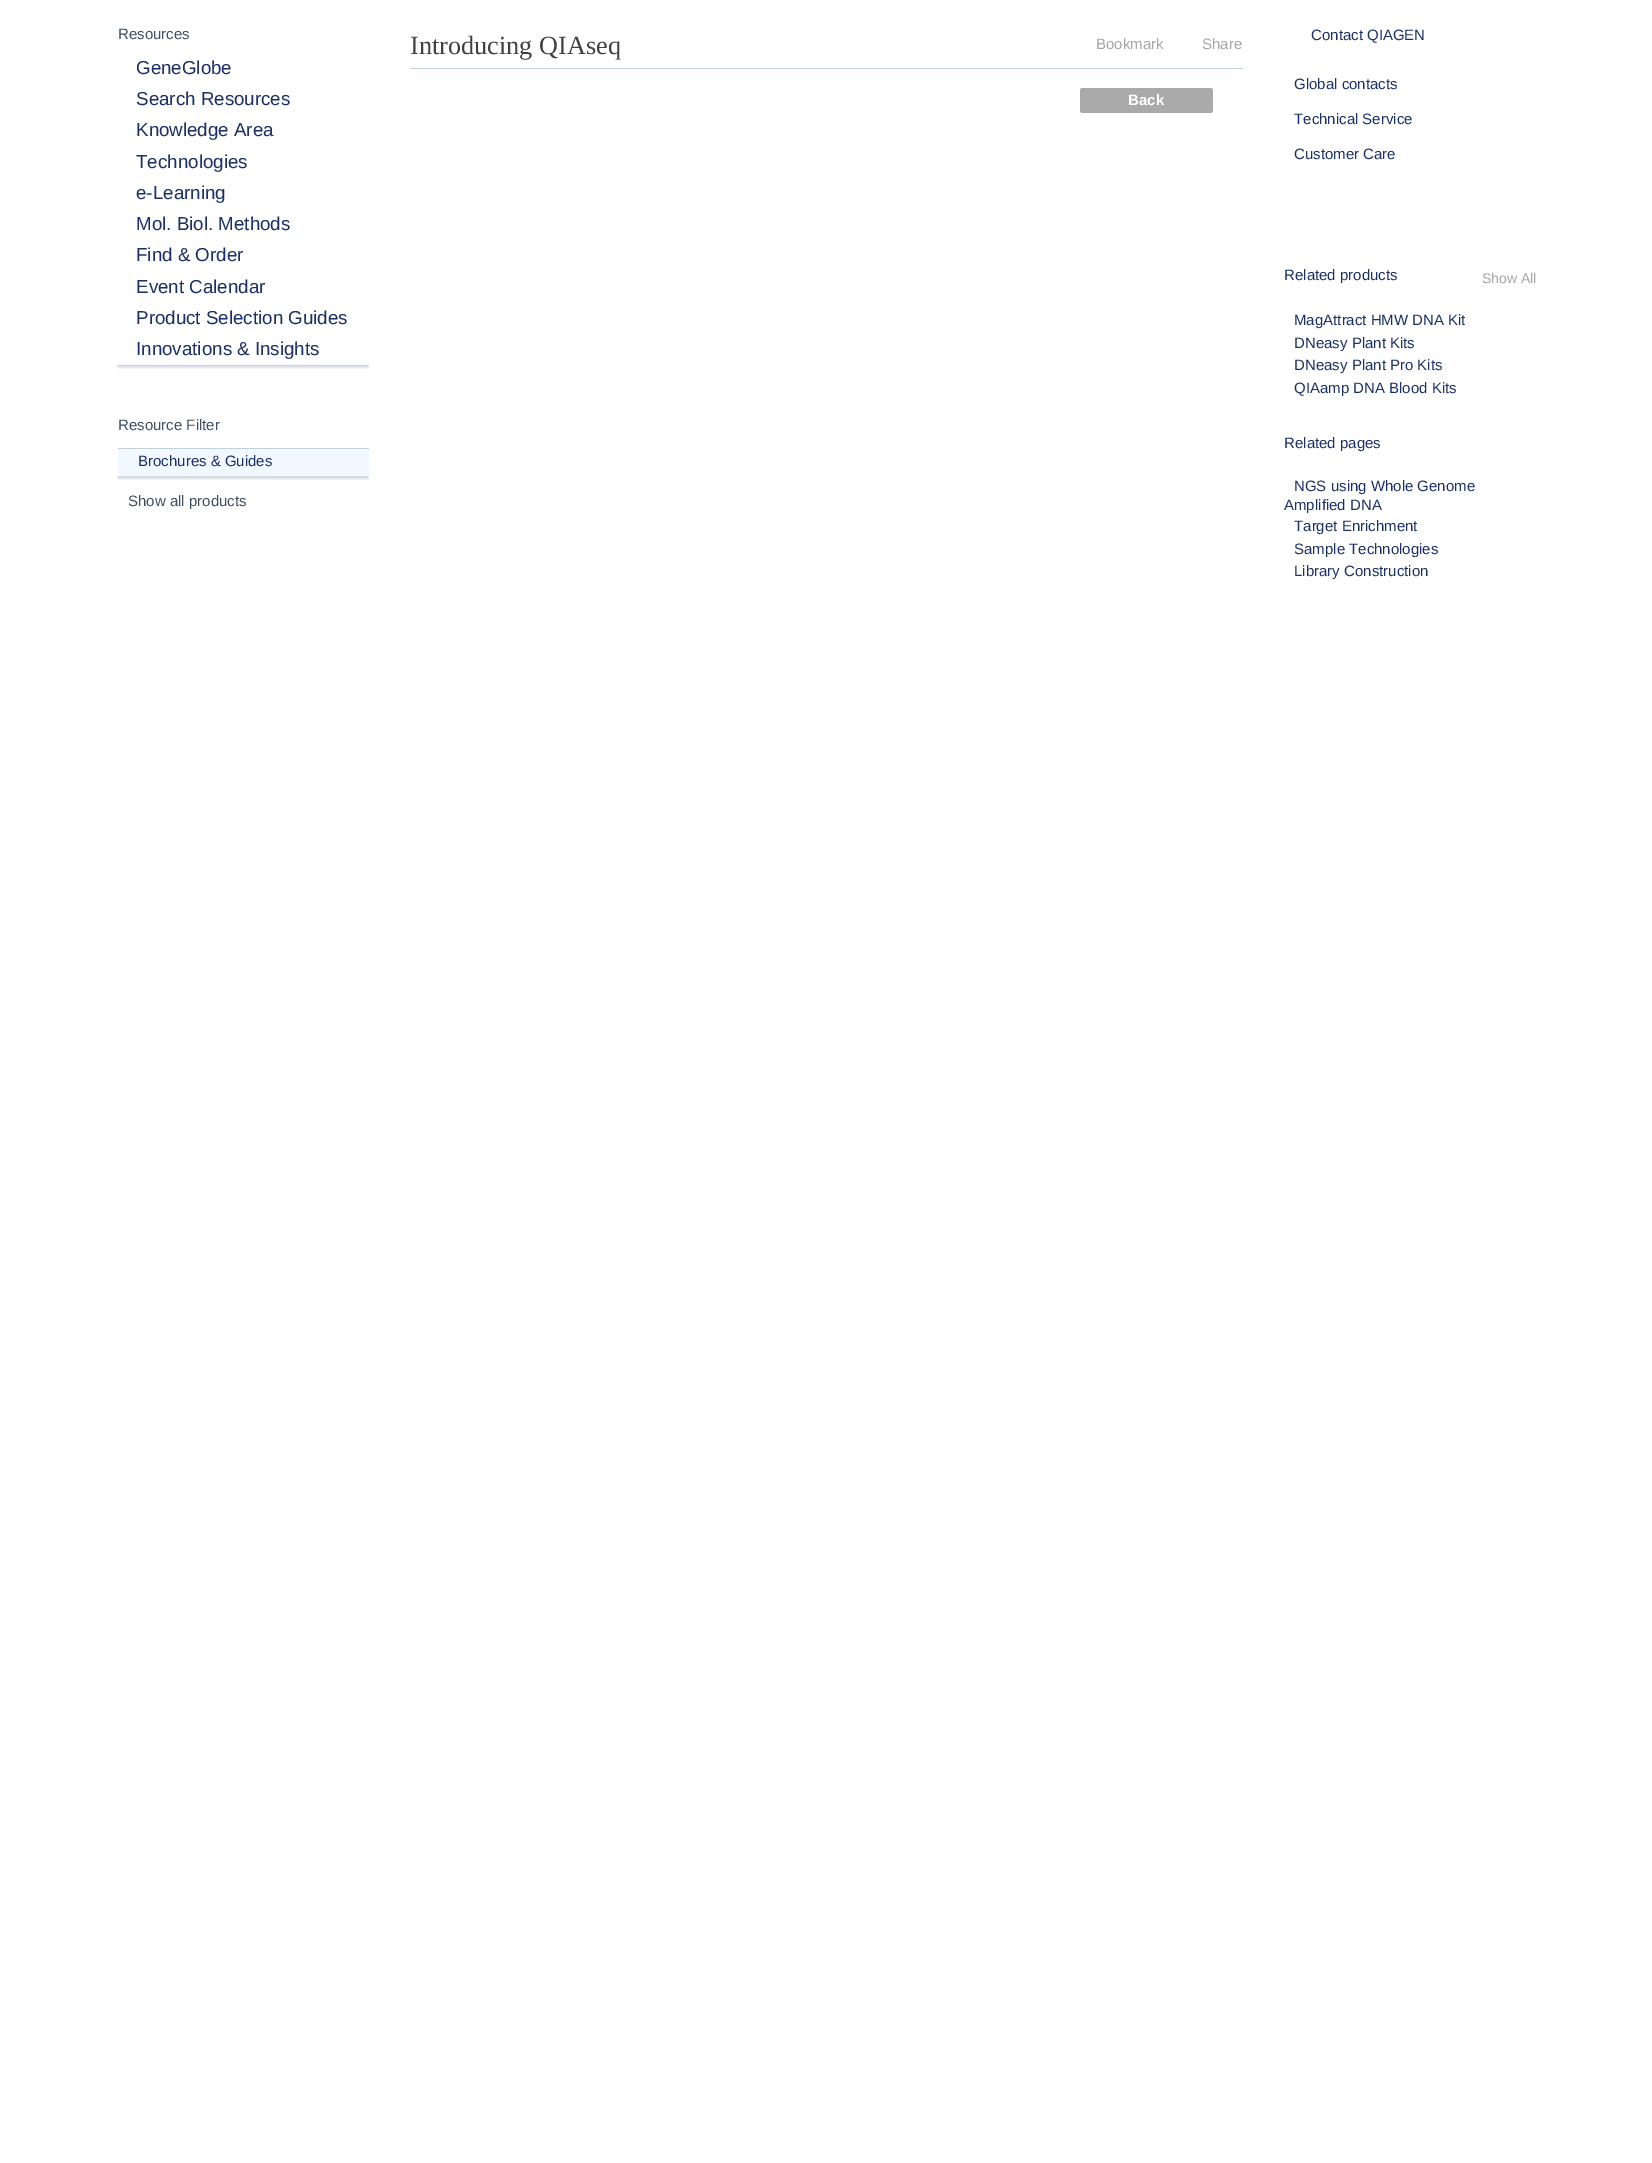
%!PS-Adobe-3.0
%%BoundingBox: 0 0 1652 2163
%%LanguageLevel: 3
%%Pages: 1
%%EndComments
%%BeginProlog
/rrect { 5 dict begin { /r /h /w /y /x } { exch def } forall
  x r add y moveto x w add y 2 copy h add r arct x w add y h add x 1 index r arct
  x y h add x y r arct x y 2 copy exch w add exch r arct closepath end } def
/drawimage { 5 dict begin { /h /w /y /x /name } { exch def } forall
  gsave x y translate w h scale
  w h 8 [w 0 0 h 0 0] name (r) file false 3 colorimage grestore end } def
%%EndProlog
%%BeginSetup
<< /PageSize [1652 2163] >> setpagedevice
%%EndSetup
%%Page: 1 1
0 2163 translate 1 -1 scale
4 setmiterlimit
1 setgray
0 0 1652 2163 rectfill
(images/1.raw) 117 364 252 5 drawimage
(images/2.raw) 117 475 252 5 drawimage
0.949 0.973 1 setrgbcolor
118 449 251 26 rectfill
0.765 0.82 0.851 setrgbcolor
118 448 251 1 rectfill
410 68 833 1 rectfill
0.667 setgray
1080 88 133 25 2.5 rrect fill
/LiberationSans-Regular [15 0 0 -15 0 0] selectfont
0.235 0.314 0.38 setrgbcolor
118 39 moveto (Resources) show
/LiberationSans-Regular [18.75 0 0 -18.75 0 0] selectfont
0.106 0.188 0.404 setrgbcolor
136 74 moveto (GeneGlobe) show
136 105 moveto (Search Resources) show
136 136 moveto (Knowledge Area) show
136 168 moveto (Technologies) show
136 199 moveto (e-Learning) show
136 230 moveto (Mol. Biol. Methods) show
136 261 moveto (Find & Order) show
136 293 moveto (Event Calendar) show
136 324 moveto (Product Selection Guides) show
136 355 moveto (Innovations & Insights) show
/LiberationSans-Regular [15 0 0 -15 0 0] selectfont
0.235 0.314 0.38 setrgbcolor
118 430 moveto (Resource Filter) show
0.106 0.188 0.404 setrgbcolor
138 466 moveto (Brochures & Guides) show
0.235 0.314 0.38 setrgbcolor
128 506 moveto (Show all products) show
/LiberationSerif-Regular [26.25 0 0 -26.25 0 0] selectfont
0.251 setgray
410 54 moveto (Introducing QIAseq) show
/LiberationSans-Regular [15 0 0 -15 0 0] selectfont
0.651 setgray
1096 49 moveto (Bookmark) show
1202 49 moveto (Share) show
/LiberationSans-Bold [15 0 0 -15 0 0] selectfont
1 setgray
1128 105 moveto (Back) show
/LiberationSans-Regular [15 0 0 -15 0 0] selectfont
0.106 0.188 0.404 setrgbcolor
1311 40 moveto (Contact QIAGEN) show
1294 89 moveto (Global contacts) show
1294 124 moveto (Technical Service) show
1294 159 moveto (Customer Care) show
1284 280 moveto (Related products) show
/LiberationSans-Regular [14 0 0 -14 0 0] selectfont
0.651 setgray
1482 283 moveto (Show All) show
/LiberationSans-Regular [15 0 0 -15 0 0] selectfont
0.106 0.188 0.404 setrgbcolor
1294 325 moveto (MagAttract HMW DNA Kit) show
1294 348 moveto (DNeasy Plant Kits) show
1294 370 moveto (DNeasy Plant Pro Kits) show
1294 393 moveto (QIAamp DNA Blood Kits) show
1284 448 moveto (Related pages) show
1294 491 moveto (NGS using Whole Genome) show
1284 510 moveto (Amplified DNA) show
1294 531 moveto (Target Enrichment) show
1294 554 moveto (Sample Technologies) show
1294 576 moveto (Library Construction) show
showpage
%%EOF
